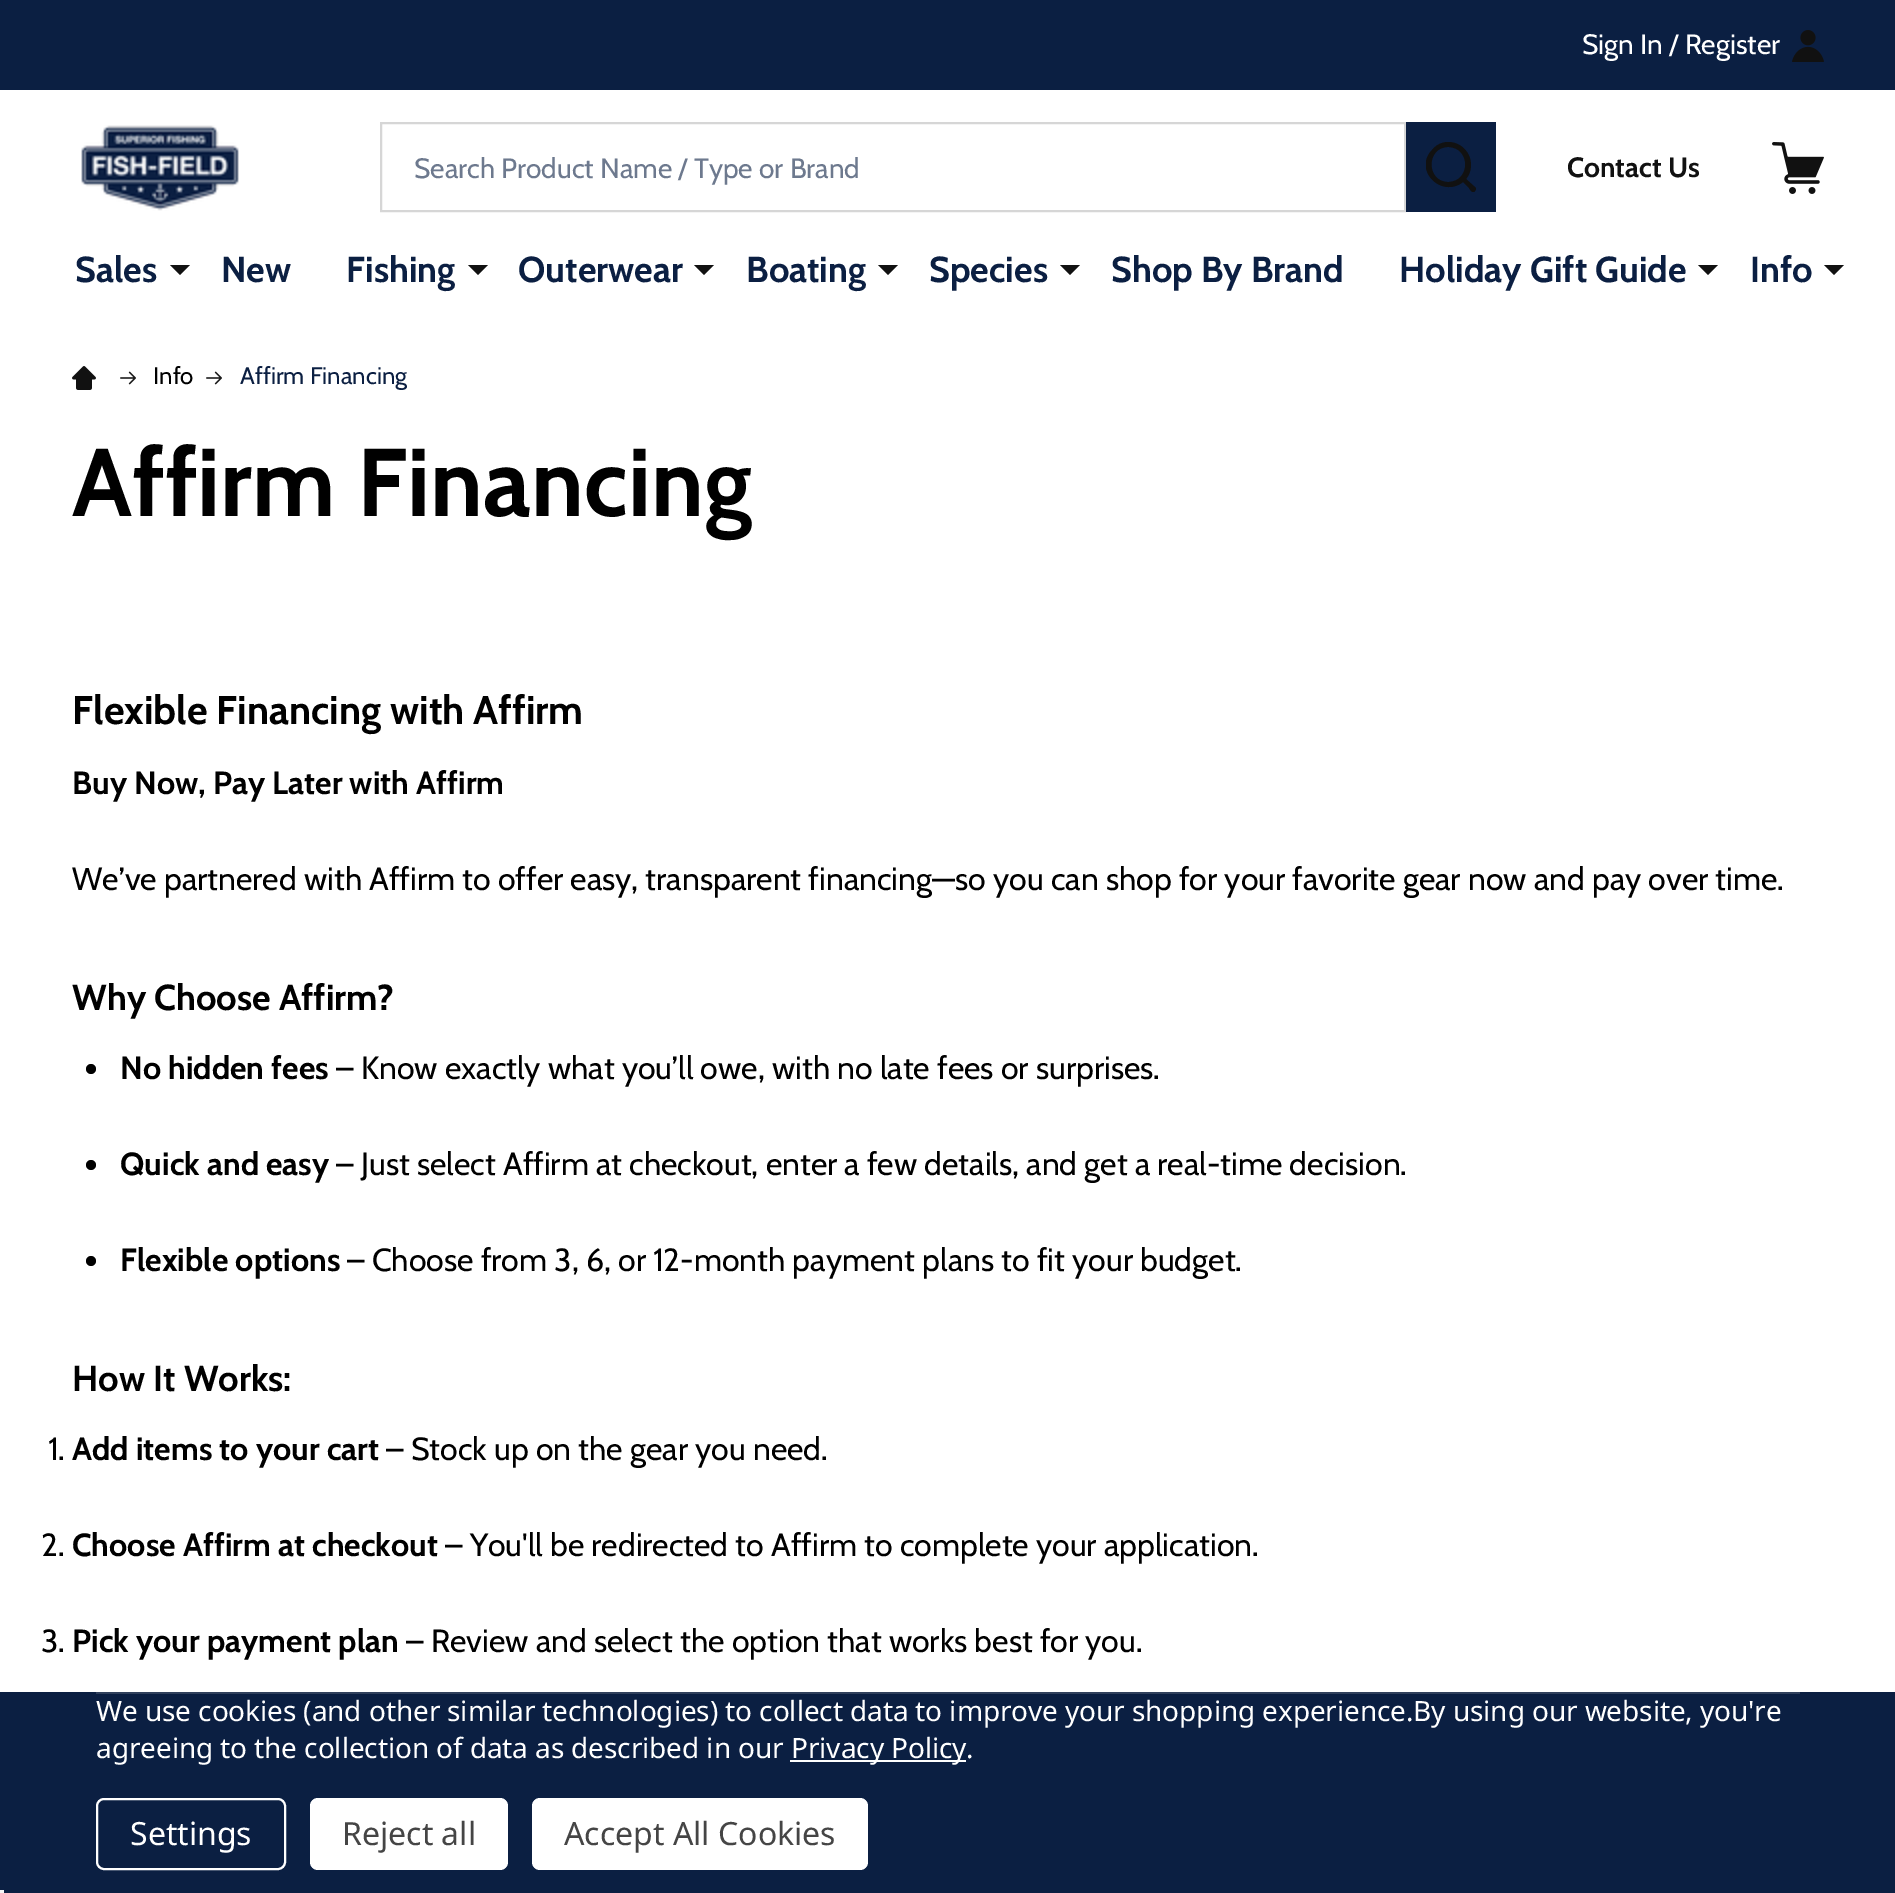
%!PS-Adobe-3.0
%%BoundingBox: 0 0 1895 1893
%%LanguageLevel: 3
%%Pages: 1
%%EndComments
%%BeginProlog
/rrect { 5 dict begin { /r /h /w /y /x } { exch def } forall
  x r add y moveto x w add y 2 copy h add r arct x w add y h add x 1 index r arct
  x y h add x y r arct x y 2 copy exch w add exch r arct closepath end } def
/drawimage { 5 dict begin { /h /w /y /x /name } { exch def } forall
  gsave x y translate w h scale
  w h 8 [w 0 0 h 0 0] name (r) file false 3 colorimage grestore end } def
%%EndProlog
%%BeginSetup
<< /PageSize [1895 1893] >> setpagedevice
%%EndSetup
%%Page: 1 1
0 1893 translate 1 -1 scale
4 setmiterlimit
1 setgray
0 0 1895 1893 rectfill
0.043 0.122 0.259 setrgbcolor
0 0 1895 90 rectfill
(images/1.raw) 1792 30 32 32 drawimage
(images/2.raw) 81 125 158 86 drawimage
0.839 setgray
2 setlinewidth
381 123 1024 88 rectstroke
0.043 0.122 0.259 setrgbcolor
1406 122 90 90 rectfill
gsave
1426 142 50 50 rectclip
0.067 setgray
newpath 1448 142 moveto 1467 142 1478 164 1466 179 curveto 1476 188 lineto 1476 189 1476 190 1475 191 curveto 1473 194 1470 190 1469 188 curveto 1463 182 lineto 1441 199 1412 169 1433 149 curveto 1437 144 1443 142 1448 142 curveto closepath 1448 147 moveto 1426 147 1426 182 1448 182 curveto 1471 182 1471 147 1448 147 curveto closepath fill
grestore
(images/3.raw) 1772 142 52 52 drawimage
0.067 setgray
newpath 170 265 moveto 180 275 lineto 190 265 lineto closepath fill
newpath 468 265 moveto 478 275 lineto 488 265 lineto closepath fill
newpath 694 265 moveto 704 275 lineto 714 265 lineto closepath fill
newpath 878 265 moveto 888 275 lineto 898 265 lineto closepath fill
newpath 1060 265 moveto 1070 275 lineto 1080 265 lineto closepath fill
newpath 1698 265 moveto 1708 275 lineto 1718 265 lineto closepath fill
newpath 1824 265 moveto 1834 275 lineto 1844 265 lineto closepath fill
(images/4.raw) 72 366 24 24 drawimage
(images/5.raw) 120 371 16 14 drawimage
(images/5.raw) 206 371 16 14 drawimage
0 setgray
newpath 91 1069 5 0 360 arc closepath fill
newpath 91 1165 5 0 360 arc closepath fill
newpath 91 1261 5 0 360 arc closepath fill
0.043 0.122 0.259 setrgbcolor
0 1692 1895 201 rectfill
0.188 0.251 0.361 setrgbcolor
96 1692 1704 2 rectfill
1 setgray
790 1760 176 2 rectfill
97 1799 188 70 7 rrect stroke
310 1798 198 72 8 rrect fill
532 1798 336 72 8 rrect fill
0.961 setgray
0 1890 4 3 rectfill
/Cabin-Regular [28 0 0 -28 0 0] selectfont
1 setgray
1582 54 moveto (Sign In / Register) show
0.427 0.475 0.557 setrgbcolor
414 178 moveto (Search Product Name / Type or Brand) show
/Cabin-Bold [28 0 0 -28 0 0] selectfont
0.067 setgray
1567 177 moveto (Contact Us) show
/Cabin-Bold [36 0 0 -36 0 0] selectfont
0.043 0.122 0.259 setrgbcolor
75 282 moveto (Sales) show
221 282 moveto (New) show
346 282 moveto (Fishing) show
518 282 moveto (Outerwear) show
746 282 moveto (Boating) show
929 282 moveto (Species) show
1111 282 moveto (Shop By Brand) show
1399 282 moveto (Holiday Gift Guide) show
1750 282 moveto (Info) show
/Cabin-Regular [24 0 0 -24 0 0] selectfont
0 setgray
153 384 moveto (Info) show
0.043 0.122 0.259 setrgbcolor
240 384 moveto (Affirm Financing) show
/Cabin-Bold [96 0 0 -96 0 0] selectfont
0 setgray
72 516 moveto (Affirm Financing) show
/Cabin-Bold [40 0 0 -40 0 0] selectfont
72 724 moveto (Flexible Financing with Affirm) show
/Cabin-Bold [32 0 0 -32 0 0] selectfont
72 794 moveto (Buy Now, Pay Later with Affirm) show
/Cabin-Regular [32 0 0 -32 0 0] selectfont
72 890 moveto (We’ve partnered with Affirm to offer easy, transparent financing—so you can shop for your favorite gear now and pay over time.) show
/Cabin-Bold [36 0 0 -36 0 0] selectfont
72 1010 moveto (Why Choose Affirm?) show
/Cabin-Bold [32 0 0 -32 0 0] selectfont
120 1079 moveto (No hidden fees) show
/Cabin-Regular [32 0 0 -32 0 0] selectfont
336 1079 moveto (– Know exactly what you’ll owe, with no late fees or surprises.) show
/Cabin-Bold [32 0 0 -32 0 0] selectfont
120 1175 moveto (Quick and easy) show
/Cabin-Regular [32 0 0 -32 0 0] selectfont
336 1175 moveto (– Just select Affirm at checkout, enter a few details, and get a real-time decision.) show
/Cabin-Bold [32 0 0 -32 0 0] selectfont
120 1271 moveto (Flexible options) show
/Cabin-Regular [32 0 0 -32 0 0] selectfont
347 1271 moveto (– Choose from 3, 6, or 12-month payment plans to fit your budget.) show
/Cabin-Bold [36 0 0 -36 0 0] selectfont
72 1391 moveto (How It Works:) show
/Cabin-Regular [32 0 0 -32 0 0] selectfont
48 1460 moveto (1.) show
/Cabin-Bold [32 0 0 -32 0 0] selectfont
72 1460 moveto (Add items to your cart) show
/Cabin-Regular [32 0 0 -32 0 0] selectfont
386 1460 moveto (– Stock up on the gear you need.) show
41 1556 moveto (2.) show
/Cabin-Bold [32 0 0 -32 0 0] selectfont
72 1556 moveto (Choose Affirm at checkout) show
/Cabin-Regular [32 0 0 -32 0 0] selectfont
445 1556 moveto (– You'll be redirected to Affirm to complete your application.) show
41 1652 moveto (3.) show
/Cabin-Bold [32 0 0 -32 0 0] selectfont
72 1652 moveto (Pick your payment plan) show
/Cabin-Regular [32 0 0 -32 0 0] selectfont
406 1652 moveto (– Review and select the option that works best for you.) show
/NotoSans-Regular [28 0 0 -28 0 0] selectfont
1 setgray
96 1721 moveto -0.1 0 (We use cookies \(and other similar technologies\) to collect data to improve your shopping experience.By using our website, you're) ashow
96 1758 moveto -0.1 0 (agreeing to the collection of data as described in our) ashow
791 1758 moveto -0.1 0 (Privacy Policy.) ashow
/NotoSans-Regular [32 0 0 -32 0 0] selectfont
130 1845 moveto (Settings) show
0.271 setgray
342 1845 moveto (Reject all) show
564 1845 moveto (Accept All Cookies) show
showpage
%%EOF
